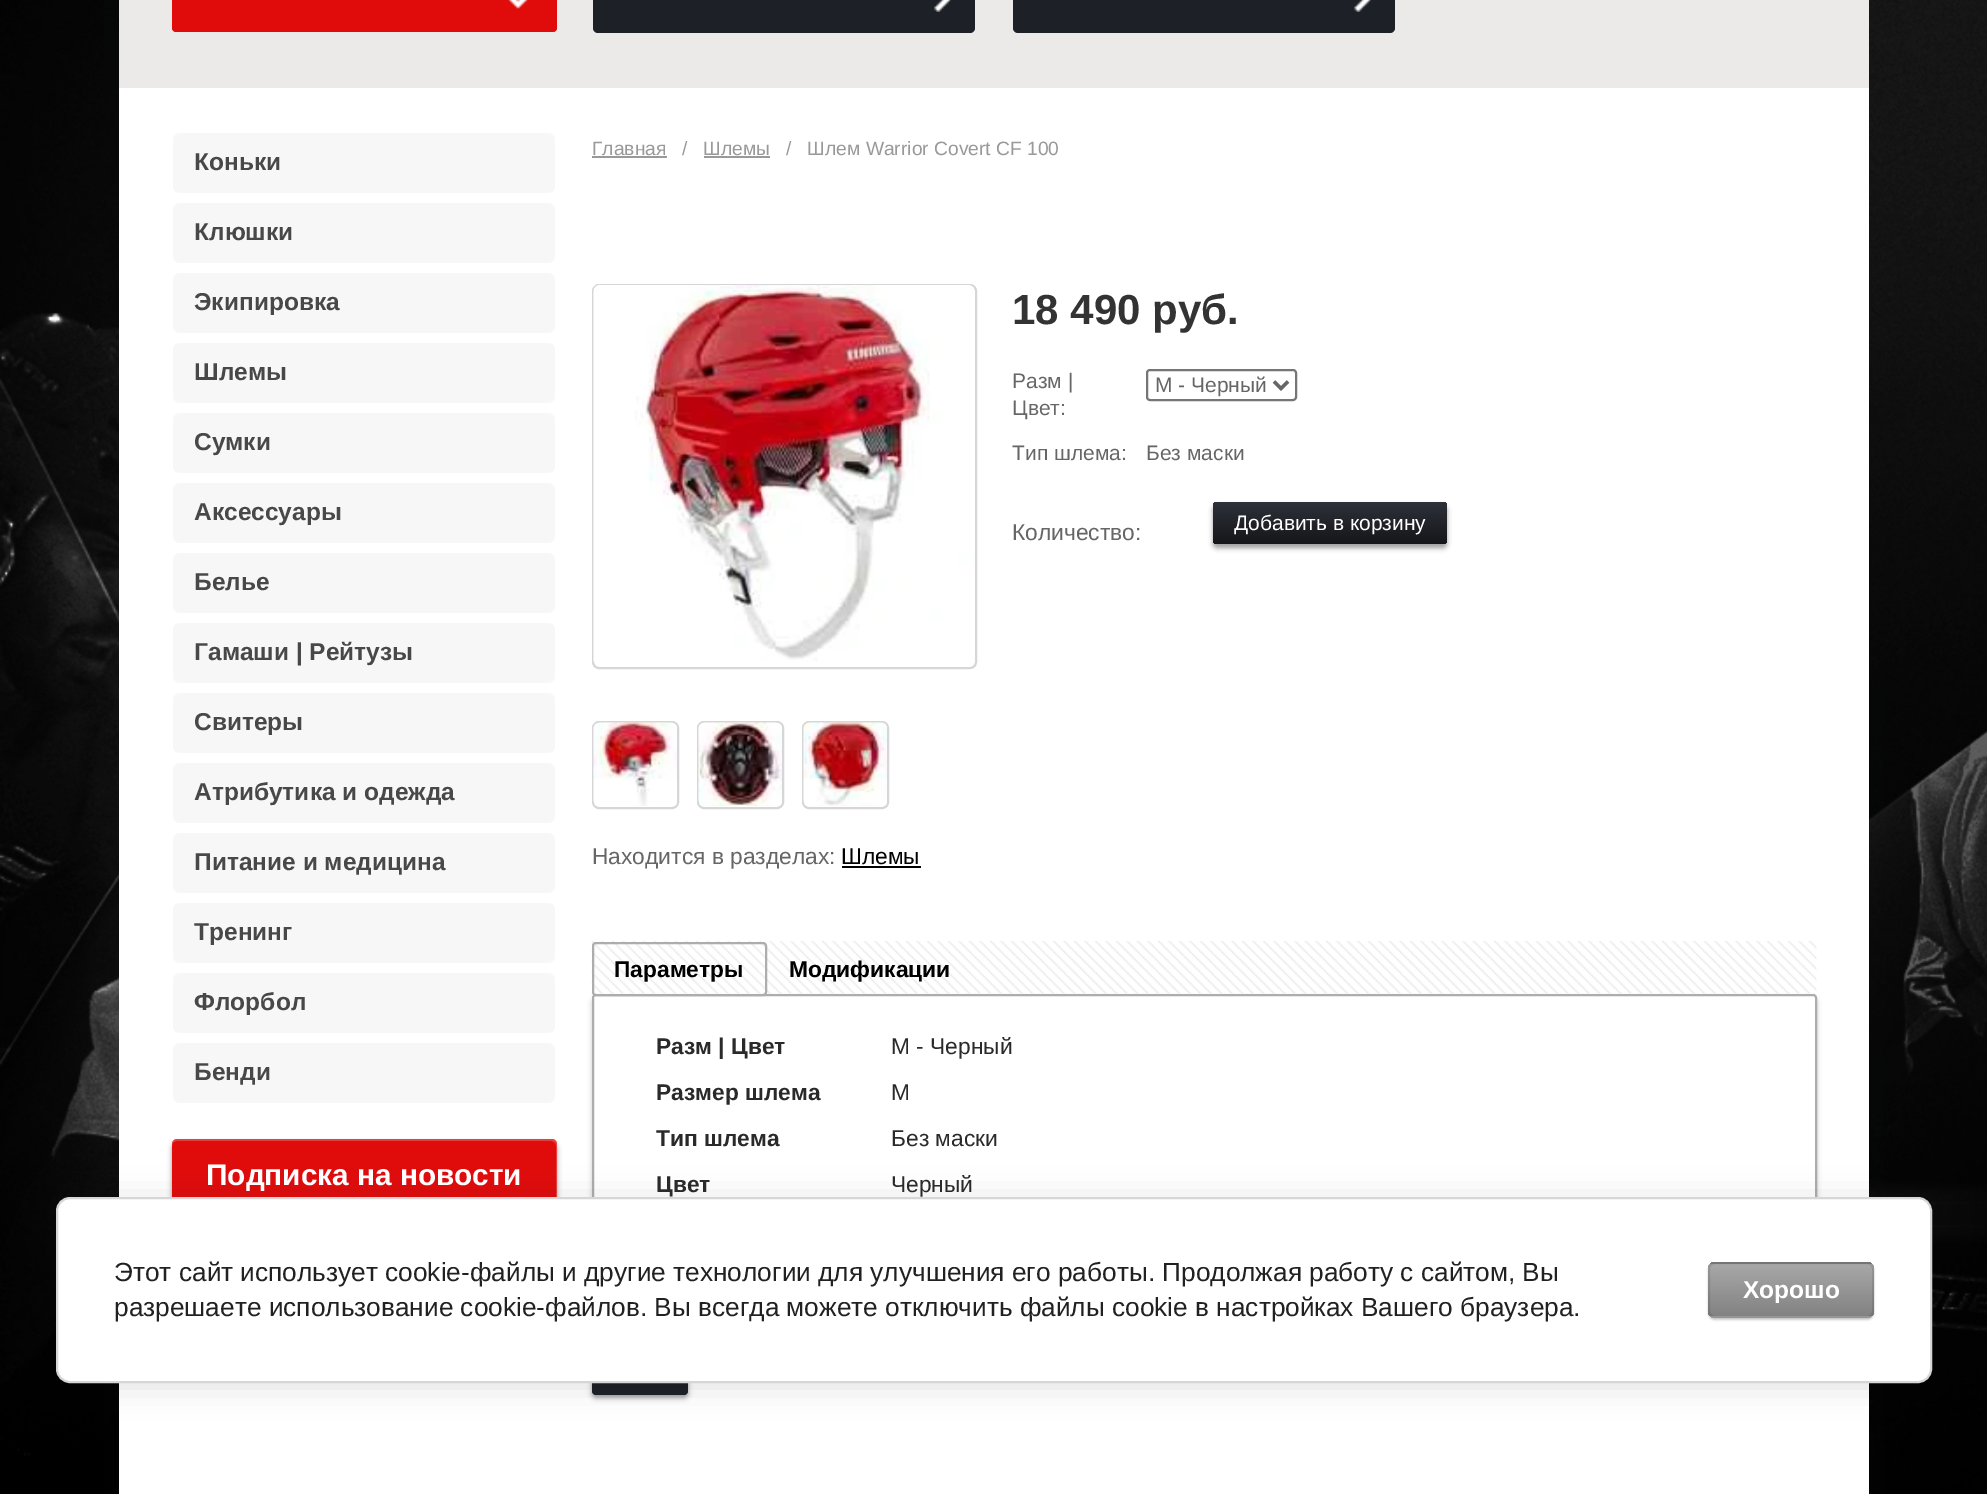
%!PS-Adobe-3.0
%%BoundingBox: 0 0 1987 1494
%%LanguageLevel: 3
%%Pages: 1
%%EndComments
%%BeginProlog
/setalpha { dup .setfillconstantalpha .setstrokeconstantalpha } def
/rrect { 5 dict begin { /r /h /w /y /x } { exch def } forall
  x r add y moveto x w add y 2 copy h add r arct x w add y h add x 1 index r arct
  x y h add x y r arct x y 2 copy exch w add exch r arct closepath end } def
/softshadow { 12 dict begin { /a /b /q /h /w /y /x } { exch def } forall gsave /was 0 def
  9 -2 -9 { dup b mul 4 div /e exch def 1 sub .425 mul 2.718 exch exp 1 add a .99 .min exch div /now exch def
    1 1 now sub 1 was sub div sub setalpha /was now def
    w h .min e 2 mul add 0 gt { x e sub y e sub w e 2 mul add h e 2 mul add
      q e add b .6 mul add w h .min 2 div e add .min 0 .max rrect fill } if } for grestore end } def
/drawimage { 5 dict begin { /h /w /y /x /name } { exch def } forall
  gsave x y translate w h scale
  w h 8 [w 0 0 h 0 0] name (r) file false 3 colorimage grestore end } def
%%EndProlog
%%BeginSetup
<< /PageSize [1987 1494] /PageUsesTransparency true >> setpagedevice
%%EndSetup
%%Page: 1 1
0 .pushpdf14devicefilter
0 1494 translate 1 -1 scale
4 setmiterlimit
1 setgray
0 0 1987 1494 rectfill
(images/1.raw) 0 0 1987 1494 drawimage
0.114 0.125 0.153 setrgbcolor
110 -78 1768 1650 0 26 0.09 softshadow
1 setgray
119 88 1750 1406 rectfill
0.925 0.914 0.914 setrgbcolor
119 0 1750 88 rectfill
0.878 0.047 0.047 setrgbcolor
172 -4 385 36 4 rrect fill
(images/2.raw) 508 0 20 9 drawimage
0.114 0.125 0.153 setrgbcolor
593 -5 382 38 5 rrect fill
(images/3.raw) 934 0 17 12 drawimage
1013 -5 382 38 5 rrect fill
(images/3.raw) 1354 0 17 12 drawimage
0.969 setgray
173 133 382 60 7 rrect fill
173 203 382 60 7 rrect fill
173 273 382 60 7 rrect fill
173 343 382 60 7 rrect fill
173 413 382 60 7 rrect fill
173 483 382 60 7 rrect fill
173 553 382 60 7 rrect fill
173 623 382 60 7 rrect fill
173 693 382 60 7 rrect fill
173 763 382 60 7 rrect fill
173 833 382 60 7 rrect fill
173 903 382 60 7 rrect fill
173 973 382 60 7 rrect fill
173 1043 382 60 7 rrect fill
0 setgray
172 1143 385 73 5 2.5 0.38 softshadow
0.878 0.047 0.047 setrgbcolor
172 1139 385 74 5 rrect fill
0.21 setalpha
1 setgray
newpath 177 1141 moveto 551 1141 lineto 554 1141 556 1143 556 1146 curveto 556 1209 lineto 555 1212 lineto 556 1211 557 1209 557 1208 curveto 557 1144 lineto 557 1141 555 1139 552 1139 curveto 177 1139 lineto 174 1139 172 1141 172 1144 curveto 172 1146 lineto 172 1143 174 1141 177 1141 curveto closepath fill
1 setalpha
0.6 setgray
592 156 75 2 rectfill
704 156 66 2 rectfill
0.839 setgray
2 setlinewidth
593 285 383 383 6 rrect stroke
(images/4.raw) 593 285 381 377 drawimage
0.463 setgray
1147 370 149 30 3 rrect stroke
0.4 setgray
3.5 setlinewidth
newpath 1274 381.5 moveto 1281 388.5 lineto 1288 381.5 lineto stroke
0 setgray
1213 506 234 42 4 2.5 0.38 softshadow
gsave 1213 502 234 42 4 rrect clip newpath
<< /ShadingType 2 /ColorSpace /DeviceRGB /Coords [1330 502 1330 544] /Extend [true true] /Function << /FunctionType 2 /Domain [0 1] /C0 [0.176 0.192 0.224] /C1 [0.082 0.086 0.098] /N 1 >> >> shfill grestore
0.839 setgray
2 setlinewidth
593 722 85 86 6 rrect stroke
(images/5.raw) 593 722 84 84 drawimage
698 722 85 86 6 rrect stroke
(images/6.raw) 698 722 84 84 drawimage
803 722 85 86 6 rrect stroke
(images/7.raw) 803 722 84 84 drawimage
0 setgray
842 866 79 2 rectfill
(images/8.raw) 591 941 1226 53 drawimage
0.678 setgray
593 943 173 52 3 rrect stroke
gsave
newpath 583 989 moveto 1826 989 lineto 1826 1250 lineto 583 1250 lineto closepath 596 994 moveto 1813 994 lineto 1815 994 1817 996 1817 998 curveto 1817 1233 lineto 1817 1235 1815 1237 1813 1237 curveto 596 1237 lineto 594 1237 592 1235 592 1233 curveto 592 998 lineto 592 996 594 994 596 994 curveto closepath eoclip newpath
0 setgray
592 998 1225 243 4 2.5 0.2 softshadow
grestore
593 995 1223 241 3 rrect stroke
0 setgray
592 1356 96 42 4 2.5 0.38 softshadow
0.114 0.125 0.153 setrgbcolor
592 1353 96 42 4 rrect fill
0 setgray
60 1201 1876 185 14 16 0.14 softshadow
1 setgray
57 1198 1874 184 13 rrect gsave fill grestore
0.839 setgray
stroke
0 setgray
1708 1264 166 56 7 1 0.2 softshadow
gsave
1708 1262 166 56 7 rrect clip newpath
gsave newpath 1708 1262 moveto 1874 1262 lineto 1874 1264 lineto 1708 1264 lineto closepath clip newpath
<< /ShadingType 2 /ColorSpace /DeviceRGB /Coords [1791 1211 1791 1264] /Extend [true true] /Function << /FunctionType 2 /Domain [0 1] /C0 [0.659 0.659 0.659] /C1 [0.51 0.51 0.51] /N 1 >> >> shfill grestore
gsave newpath 1708 1264 moveto 1874 1264 lineto 1874 1316 lineto 1708 1316 lineto closepath clip newpath
<< /ShadingType 2 /ColorSpace /DeviceRGB /Coords [1791 1264 1791 1316] /Extend [true true] /Function << /FunctionType 2 /Domain [0 1] /C0 [0.659 0.659 0.659] /C1 [0.51 0.51 0.51] /N 1 >> >> shfill grestore
gsave newpath 1708 1316 moveto 1874 1316 lineto 1874 1318 lineto 1708 1318 lineto closepath clip newpath
<< /ShadingType 2 /ColorSpace /DeviceRGB /Coords [1791 1316 1791 1369] /Extend [true true] /Function << /FunctionType 2 /Domain [0 1] /C0 [0.659 0.659 0.659] /C1 [0.51 0.51 0.51] /N 1 >> >> shfill grestore
grestore
0.1 setalpha
1709 1263 164 54 6 rrect stroke
/LiberationSans-Bold [24.5 0 0 -24.5 0 0] selectfont
1 setalpha
0.282 setgray
194 170 moveto (Коньки) show
194 240 moveto (Клюшки) show
194 310 moveto (Экипировка) show
194 380 moveto (Шлемы) show
194 450 moveto (Сумки) show
194 520 moveto (Аксессуары) show
194 590 moveto (Белье) show
194 660 moveto (Гамаши | Рейтузы) show
194 730 moveto (Свитеры) show
194 800 moveto (Атрибутика и одежда) show
194 870 moveto (Питание и медицина) show
194 940 moveto (Тренинг) show
194 1010 moveto (Флорбол) show
194 1080 moveto (Бенди) show
/LiberationSans-Bold [29.75 0 0 -29.75 0 0] selectfont
1 setgray
206 1185 moveto (Подписка на новости) show
/LiberationSans-Regular [19.25 0 0 -19.25 0 0] selectfont
0.6 setgray
592 155 moveto (Главная) show
682 155 moveto (/) show
703 155 moveto (Шлемы) show
786 155 moveto (/   Шлем Warrior Covert CF 100) show
/LiberationSans-Bold [42 0 0 -42 0 0] selectfont
0.2 setgray
1012 324 moveto (18 490 руб.) show
/LiberationSans-Regular [21 0 0 -21 0 0] selectfont
0.4 setgray
1012 388 moveto (Разм |) show
1012 415 moveto (Цвет:) show
1155 392 moveto (M - Черный) show
1012 460 moveto (Тип шлема:) show
1146 460 moveto (Без маски) show
/LiberationSans-Regular [22.75 0 0 -22.75 0 0] selectfont
1012 540 moveto (Количество:) show
/LiberationSans-Regular [21 0 0 -21 0 0] selectfont
1 setgray
1234 530 moveto (Добавить в корзину) show
/LiberationSans-Regular [22.75 0 0 -22.75 0 0] selectfont
0.4 setgray
592 864 moveto (Находится в разделах:) show
0 setgray
841 864 moveto (Шлемы) show
/LiberationSans-Bold [22.75 0 0 -22.75 0 0] selectfont
614 977 moveto (Параметры) show
789 977 moveto (Модификации) show
0.165 setgray
656 1054 moveto (Разм | Цвет) show
/LiberationSans-Regular [22.75 0 0 -22.75 0 0] selectfont
891 1054 moveto (M - Черный) show
/LiberationSans-Bold [22.75 0 0 -22.75 0 0] selectfont
656 1100 moveto (Размер шлема) show
/LiberationSans-Regular [22.75 0 0 -22.75 0 0] selectfont
891 1100 moveto (M) show
/LiberationSans-Bold [22.75 0 0 -22.75 0 0] selectfont
656 1146 moveto (Тип шлема) show
/LiberationSans-Regular [22.75 0 0 -22.75 0 0] selectfont
891 1146 moveto (Без маски) show
/LiberationSans-Bold [22.75 0 0 -22.75 0 0] selectfont
656 1192 moveto (Цвет) show
/LiberationSans-Regular [22.75 0 0 -22.75 0 0] selectfont
891 1192 moveto (Черный) show
/LiberationSans-Regular [26.25 0 0 -26.25 0 0] selectfont
0.129 setgray
114 1281 moveto (Этот сайт использует cookie-файлы и другие технологии для улучшения его работы. Продолжая работу с сайтом, Вы) show
114 1316 moveto (разрешаете использование cookie-файлов. Вы всегда можете отключить файлы cookie в настройках Вашего браузера.) show
/LiberationSans-Bold [24.5 0 0 -24.5 0 0] selectfont
1 setgray
1743 1298 moveto (Хорошо) show
.poppdf14devicefilter showpage
%%EOF
